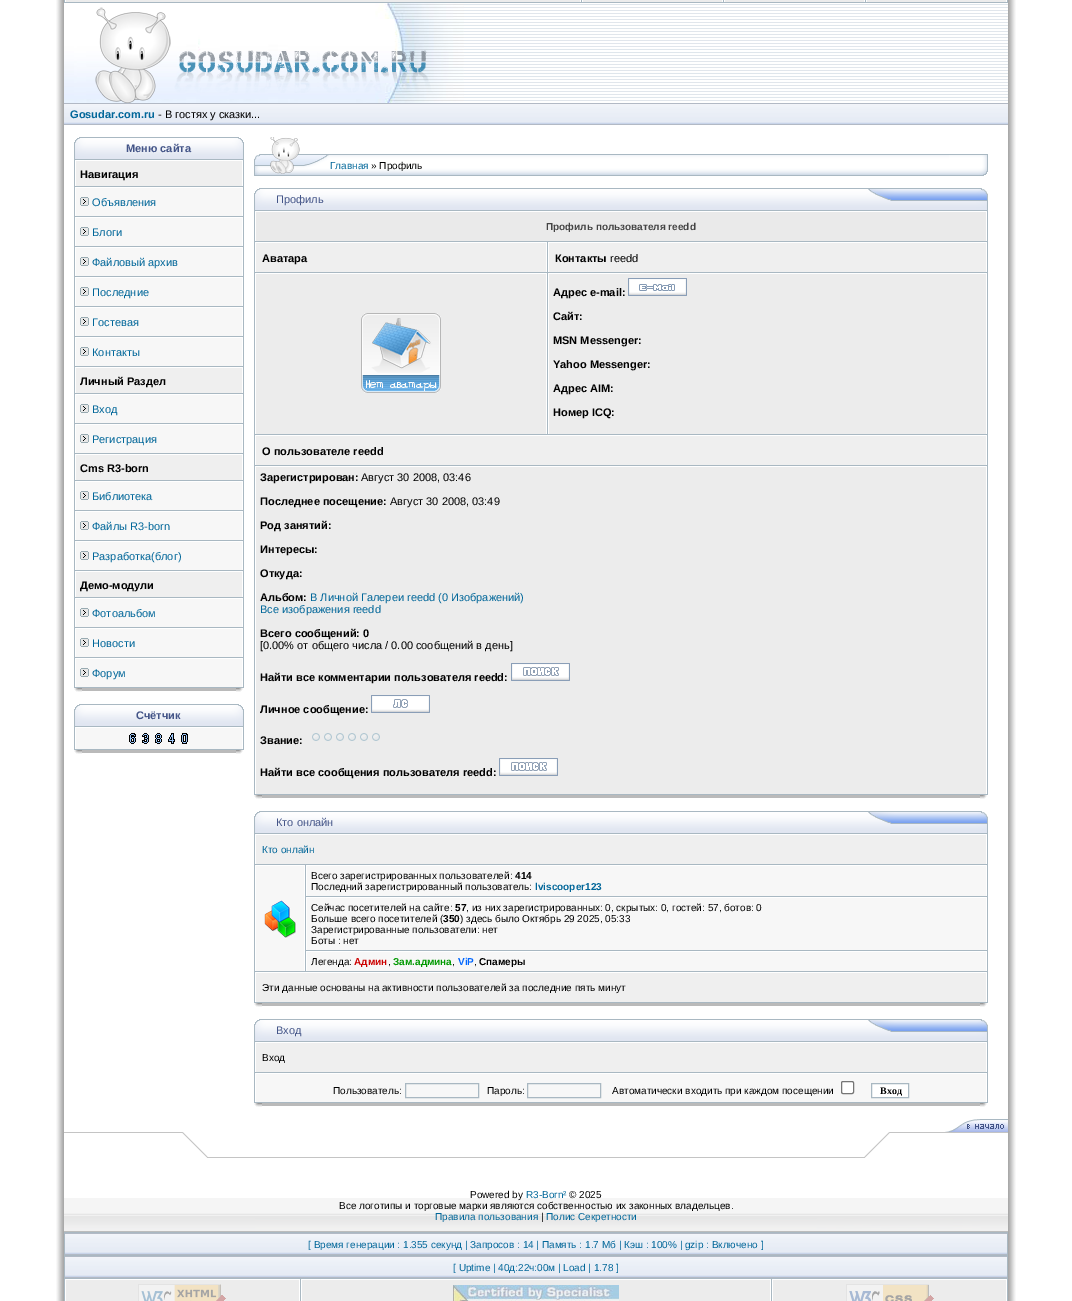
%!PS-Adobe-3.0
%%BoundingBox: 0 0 1072 1301
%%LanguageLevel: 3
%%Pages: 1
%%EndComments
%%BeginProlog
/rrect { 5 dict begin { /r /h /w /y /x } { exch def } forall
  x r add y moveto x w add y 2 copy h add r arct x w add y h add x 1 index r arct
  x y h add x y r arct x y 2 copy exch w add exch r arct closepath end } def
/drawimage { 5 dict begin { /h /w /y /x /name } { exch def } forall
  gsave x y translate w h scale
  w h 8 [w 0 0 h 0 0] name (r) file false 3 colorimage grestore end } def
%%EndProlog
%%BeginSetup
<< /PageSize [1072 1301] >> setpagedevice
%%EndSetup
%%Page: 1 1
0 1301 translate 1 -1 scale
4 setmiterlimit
1 setgray
0 0 1072 1301 rectfill
(images/1.raw) 56 0 8 1301 drawimage
0.663 0.722 0.761 setrgbcolor
64 0 944 3 rectfill
0.925 setgray
66 0 514 2 rectfill
1 setgray
580 0 1 2 rectfill
65 0 1 2 rectfill
0.925 setgray
583 0 139 2 rectfill
1 setgray
722 0 1 2 rectfill
582 0 1 2 rectfill
0.925 setgray
725 0 139 2 rectfill
1 setgray
864 0 1 2 rectfill
724 0 1 2 rectfill
0.925 setgray
867 0 139 2 rectfill
1 setgray
1006 0 1 2 rectfill
866 0 1 2 rectfill
(images/2.raw) 64 3 400 100 drawimage
(images/3.raw) 464 4 544 97 drawimage
(images/4.raw) 64 103 944 22 drawimage
(images/5.raw) 74 137 22 22 drawimage
(images/6.raw) 96 137 126 22 drawimage
(images/7.raw) 222 137 22 22 drawimage
0.663 0.722 0.761 setrgbcolor
74 159 170 529 rectfill
0.937 setgray
76 161 166 25 rectfill
1 setgray
75 160 168 1 rectfill
242 160 1 26 rectfill
75 160 1 26 rectfill
0.969 setgray
76 188 166 28 rectfill
1 setgray
75 187 168 1 rectfill
242 187 1 29 rectfill
75 187 1 29 rectfill
(images/8.raw) 80 197 9 9 drawimage
0.969 setgray
76 218 166 28 rectfill
1 setgray
75 217 168 1 rectfill
242 217 1 29 rectfill
75 217 1 29 rectfill
(images/8.raw) 80 227 9 9 drawimage
0.969 setgray
76 248 166 28 rectfill
1 setgray
75 247 168 1 rectfill
242 247 1 29 rectfill
75 247 1 29 rectfill
(images/8.raw) 80 257 9 9 drawimage
0.969 setgray
76 278 166 28 rectfill
1 setgray
75 277 168 1 rectfill
242 277 1 29 rectfill
75 277 1 29 rectfill
(images/8.raw) 80 287 9 9 drawimage
0.969 setgray
76 308 166 28 rectfill
1 setgray
75 307 168 1 rectfill
242 307 1 29 rectfill
75 307 1 29 rectfill
(images/8.raw) 80 317 9 9 drawimage
0.969 setgray
76 338 166 28 rectfill
1 setgray
75 337 168 1 rectfill
242 337 1 29 rectfill
75 337 1 29 rectfill
(images/8.raw) 80 347 9 9 drawimage
0.937 setgray
76 368 166 25 rectfill
1 setgray
75 367 168 1 rectfill
242 367 1 26 rectfill
75 367 1 26 rectfill
0.969 setgray
76 395 166 28 rectfill
1 setgray
75 394 168 1 rectfill
242 394 1 29 rectfill
75 394 1 29 rectfill
(images/8.raw) 80 404 9 9 drawimage
0.969 setgray
76 425 166 28 rectfill
1 setgray
75 424 168 1 rectfill
242 424 1 29 rectfill
75 424 1 29 rectfill
(images/8.raw) 80 434 9 9 drawimage
0.937 setgray
76 455 166 25 rectfill
1 setgray
75 454 168 1 rectfill
242 454 1 26 rectfill
75 454 1 26 rectfill
0.969 setgray
76 482 166 28 rectfill
1 setgray
75 481 168 1 rectfill
242 481 1 29 rectfill
75 481 1 29 rectfill
(images/8.raw) 80 491 9 9 drawimage
0.969 setgray
76 512 166 28 rectfill
1 setgray
75 511 168 1 rectfill
242 511 1 29 rectfill
75 511 1 29 rectfill
(images/8.raw) 80 521 9 9 drawimage
0.969 setgray
76 542 166 28 rectfill
1 setgray
75 541 168 1 rectfill
242 541 1 29 rectfill
75 541 1 29 rectfill
(images/8.raw) 80 551 9 9 drawimage
0.937 setgray
76 572 166 25 rectfill
1 setgray
75 571 168 1 rectfill
242 571 1 26 rectfill
75 571 1 26 rectfill
0.969 setgray
76 599 166 28 rectfill
1 setgray
75 598 168 1 rectfill
242 598 1 29 rectfill
75 598 1 29 rectfill
(images/8.raw) 80 608 9 9 drawimage
0.969 setgray
76 629 166 28 rectfill
1 setgray
75 628 168 1 rectfill
242 628 1 29 rectfill
75 628 1 29 rectfill
(images/8.raw) 80 638 9 9 drawimage
0.969 setgray
76 659 166 28 rectfill
1 setgray
75 658 168 1 rectfill
242 658 1 29 rectfill
75 658 1 29 rectfill
(images/8.raw) 80 668 9 9 drawimage
(images/9.raw) 74 688 8 4 drawimage
0.729 setgray
82 688 154 3 rectfill
(images/10.raw) 236 688 7 4 drawimage
(images/5.raw) 74 704 22 22 drawimage
(images/6.raw) 96 704 126 22 drawimage
(images/7.raw) 222 704 22 22 drawimage
0.663 0.722 0.761 setrgbcolor
74 726 170 24 rectfill
0.969 setgray
76 728 166 21 rectfill
1 setgray
75 727 168 1 rectfill
242 727 1 22 rectfill
75 727 1 22 rectfill
(images/11.raw) 129 733 7 11 drawimage
(images/12.raw) 142 733 7 11 drawimage
(images/13.raw) 155 733 7 11 drawimage
(images/14.raw) 168 733 7 11 drawimage
(images/15.raw) 181 733 7 11 drawimage
(images/9.raw) 74 750 8 4 drawimage
0.729 setgray
82 750 154 3 rectfill
(images/10.raw) 236 750 7 4 drawimage
(images/16.raw) 254 137 76 39 drawimage
(images/17.raw) 330 154 619 22 drawimage
(images/18.raw) 949 154 39 22 drawimage
(images/5.raw) 254 188 22 22 drawimage
(images/19.raw) 276 188 588 22 drawimage
(images/20.raw) 864 188 124 22 drawimage
0.663 0.722 0.761 setrgbcolor
254 210 734 585 rectfill
0.918 setgray
256 212 730 29 rectfill
1 setgray
255 211 732 1 rectfill
986 211 1 30 rectfill
255 211 1 30 rectfill
0.937 setgray
256 243 290 29 rectfill
1 setgray
255 242 292 1 rectfill
546 242 1 30 rectfill
255 242 1 30 rectfill
0.937 setgray
549 243 437 29 rectfill
1 setgray
548 242 439 1 rectfill
986 242 1 30 rectfill
548 242 1 30 rectfill
0.925 setgray
256 274 290 160 rectfill
1 setgray
255 273 292 1 rectfill
546 273 1 161 rectfill
255 273 1 161 rectfill
(images/21.raw) 361 313 80 80 drawimage
0.925 setgray
549 274 437 160 rectfill
1 setgray
548 273 439 1 rectfill
986 273 1 161 rectfill
548 273 1 161 rectfill
(images/22.raw) 628 278 59 18 drawimage
0.937 setgray
256 436 730 29 rectfill
1 setgray
255 435 732 1 rectfill
986 435 1 30 rectfill
255 435 1 30 rectfill
0.925 setgray
256 467 730 327 rectfill
1 setgray
255 466 732 1 rectfill
986 466 1 328 rectfill
255 466 1 328 rectfill
(images/23.raw) 511 663 59 18 drawimage
(images/24.raw) 371 695 59 18 drawimage
(images/25.raw) 312 733 68 8 drawimage
(images/23.raw) 499 758 59 18 drawimage
(images/9.raw) 254 795 8 4 drawimage
0.729 setgray
262 795 718 3 rectfill
(images/10.raw) 980 795 7 4 drawimage
(images/5.raw) 254 811 22 22 drawimage
(images/19.raw) 276 811 588 22 drawimage
(images/20.raw) 864 811 124 22 drawimage
0.663 0.722 0.761 setrgbcolor
254 833 734 170 rectfill
0.937 setgray
256 835 730 29 rectfill
1 setgray
255 834 732 1 rectfill
986 834 1 30 rectfill
255 834 1 30 rectfill
0.969 setgray
256 866 48 105 rectfill
1 setgray
255 865 50 1 rectfill
304 865 1 106 rectfill
255 865 1 106 rectfill
(images/26.raw) 264 900 33 39 drawimage
0.969 setgray
307 866 679 30 rectfill
1 setgray
306 865 681 1 rectfill
986 865 1 31 rectfill
306 865 1 31 rectfill
0.969 setgray
307 898 679 52 rectfill
1 setgray
306 897 681 1 rectfill
986 897 1 53 rectfill
306 897 1 53 rectfill
0.969 setgray
307 952 679 19 rectfill
1 setgray
306 951 681 1 rectfill
986 951 1 20 rectfill
306 951 1 20 rectfill
0.937 setgray
256 973 730 29 rectfill
1 setgray
255 972 732 1 rectfill
986 972 1 30 rectfill
255 972 1 30 rectfill
(images/9.raw) 254 1003 8 4 drawimage
0.729 setgray
262 1003 718 3 rectfill
(images/10.raw) 980 1003 7 4 drawimage
(images/5.raw) 254 1019 22 22 drawimage
(images/19.raw) 276 1019 588 22 drawimage
(images/20.raw) 864 1019 124 22 drawimage
0.663 0.722 0.761 setrgbcolor
254 1041 734 62 rectfill
0.937 setgray
256 1043 730 29 rectfill
1 setgray
255 1042 732 1 rectfill
986 1042 1 30 rectfill
255 1042 1 30 rectfill
0.969 setgray
256 1074 730 28 rectfill
1 setgray
255 1073 732 1 rectfill
986 1073 1 29 rectfill
255 1073 1 29 rectfill
0.663 0.722 0.761 setrgbcolor
405.5 1083.5 73 14 rectstroke
527.5 1083.5 73 14 rectstroke
1 setgray
841.5 1081.5 12 12 1.5 rrect gsave fill grestore
0.463 setgray
stroke
1 setgray
newpath 871.5 1083.5 moveto 908.5 1083.5 lineto 908.5 1097.5 lineto 871.5 1097.5 lineto closepath gsave fill grestore
0.663 0.722 0.761 setrgbcolor
stroke
(images/9.raw) 254 1103 8 4 drawimage
0.729 setgray
262 1103 718 3 rectfill
(images/10.raw) 980 1103 7 4 drawimage
(images/27.raw) 945 1119 63 13 drawimage
(images/28.raw) 64 1132 200 100 drawimage
(images/29.raw) 264 1157 544 75 drawimage
(images/30.raw) 808 1132 200 100 drawimage
0.663 0.722 0.761 setrgbcolor
64 1232 944 69 rectfill
(images/31.raw) 65 1233 942 22 drawimage
(images/31.raw) 65 1256 942 22 drawimage
0.925 setgray
66 1280 233 21 rectfill
1 setgray
65 1279 235 1 rectfill
299 1279 1 22 rectfill
65 1279 1 22 rectfill
(images/32.raw) 138 1284 88 17 drawimage
0.925 setgray
302 1280 468 21 rectfill
1 setgray
301 1279 470 1 rectfill
770 1279 1 22 rectfill
301 1279 1 22 rectfill
(images/33.raw) 453 1285 166 16 drawimage
0.925 setgray
773 1280 233 21 rectfill
1 setgray
772 1279 235 1 rectfill
1006 1279 1 22 rectfill
772 1279 1 22 rectfill
(images/34.raw) 846 1284 88 17 drawimage
(images/35.raw) 1008 0 8 1301 drawimage
/LiberationSans-Bold [11 0 0 -11 0 0] selectfont
0 0.4 0.6 setrgbcolor
70 118 moveto (Gosudar.com.ru) show
/LiberationSans-Regular [11 0 0 -11 0 0] selectfont
0 setgray
158 118 moveto (- В гостях у сказки...) show
/LiberationSans-Bold [11 0 0 -11 0 0] selectfont
0.267 0.333 0.533 setrgbcolor
126 152 moveto (Меню сайта) show
0 setgray
80 178 moveto (Навигация) show
/LiberationSans-Regular [11 0 0 -11 0 0] selectfont
0 0.4 0.6 setrgbcolor
92 206 moveto (Объявления) show
92 236 moveto (Блоги) show
92 266 moveto (Файловый архив) show
92 296 moveto (Последние) show
92 326 moveto (Гостевая) show
92 356 moveto (Контакты) show
/LiberationSans-Bold [11 0 0 -11 0 0] selectfont
0 setgray
80 385 moveto (Личный Раздел) show
/LiberationSans-Regular [11 0 0 -11 0 0] selectfont
0 0.4 0.6 setrgbcolor
92 413 moveto (Вход) show
92 443 moveto (Регистрация) show
/LiberationSans-Bold [11 0 0 -11 0 0] selectfont
0 setgray
80 472 moveto (Cms R3-born) show
/LiberationSans-Regular [11 0 0 -11 0 0] selectfont
0 0.4 0.6 setrgbcolor
92 500 moveto (Библиотека) show
92 530 moveto (Файлы R3-born) show
92 560 moveto (Разработка\(блог\)) show
/LiberationSans-Bold [11 0 0 -11 0 0] selectfont
0 setgray
80 589 moveto (Демо-модули) show
/LiberationSans-Regular [11 0 0 -11 0 0] selectfont
0 0.4 0.6 setrgbcolor
92 617 moveto (Фотоальбом) show
92 647 moveto (Новости) show
92 677 moveto (Форум) show
/LiberationSans-Bold [11 0 0 -11 0 0] selectfont
0.267 0.333 0.533 setrgbcolor
136 719 moveto (Счётчик) show
/LiberationSans-Regular [10 0 0 -10 0 0] selectfont
0 0.4 0.6 setrgbcolor
330 169 moveto (Главная) show
0 setgray
371 169 moveto (» Профиль) show
/LiberationSans-Regular [11 0 0 -11 0 0] selectfont
0.267 0.333 0.533 setrgbcolor
276 203 moveto (Профиль) show
/LiberationSans-Bold [10 0 0 -10 0 0] selectfont
0.267 setgray
546 230 moveto (Профиль пользователя reedd) show
/LiberationSans-Bold [11 0 0 -11 0 0] selectfont
0 setgray
262 262 moveto (Аватара) show
555 262 moveto (Контакты) show
/LiberationSans-Regular [11 0 0 -11 0 0] selectfont
610 262 moveto (reedd) show
/LiberationSans-Bold [11 0 0 -11 0 0] selectfont
553 296 moveto (Адрес e-mail:) show
553 320 moveto (Сайт:) show
553 344 moveto (MSN Messenger:) show
553 368 moveto (Yahoo Messenger:) show
553 392 moveto (Адрес AIM:) show
553 416 moveto (Номер ICQ:) show
262 455 moveto (О пользователе reedd) show
260 481 moveto (Зарегистрирован:) show
/LiberationSans-Regular [11 0 0 -11 0 0] selectfont
361 481 moveto (Август 30 2008, 03:46) show
/LiberationSans-Bold [11 0 0 -11 0 0] selectfont
260 505 moveto (Последнее посещение:) show
/LiberationSans-Regular [11 0 0 -11 0 0] selectfont
390 505 moveto (Август 30 2008, 03:49) show
/LiberationSans-Bold [11 0 0 -11 0 0] selectfont
260 529 moveto (Род занятий:) show
260 553 moveto (Интересы:) show
260 577 moveto (Откуда:) show
260 601 moveto (Альбом:) show
/LiberationSans-Regular [11 0 0 -11 0 0] selectfont
0 0.4 0.6 setrgbcolor
310 601 moveto (В Личной Галереи reedd \(0 Изображений\)) show
260 613 moveto (Все изображения reedd) show
/LiberationSans-Bold [11 0 0 -11 0 0] selectfont
0 setgray
260 637 moveto (Всего сообщений: 0) show
/LiberationSans-Regular [11 0 0 -11 0 0] selectfont
260 649 moveto ([0.00% от общего числа / 0.00 сообщений в день]) show
/LiberationSans-Bold [11 0 0 -11 0 0] selectfont
260 681 moveto (Найти все комментарии пользователя reedd:) show
260 713 moveto (Личное сообщение:) show
260 744 moveto (Звание:) show
260 776 moveto (Найти все сообщения пользователя reedd:) show
/LiberationSans-Regular [11 0 0 -11 0 0] selectfont
0.267 0.333 0.533 setrgbcolor
276 826 moveto (Кто онлайн) show
/LiberationSans-Regular [10 0 0 -10 0 0] selectfont
0 0.4 0.6 setrgbcolor
262 853 moveto (Кто онлайн) show
0 setgray
311 879 moveto (Всего зарегистрированных пользователей:) show
/LiberationSans-Bold [10 0 0 -10 0 0] selectfont
515 879 moveto (414) show
/LiberationSans-Regular [10 0 0 -10 0 0] selectfont
311 890 moveto (Последний зарегистрированный пользователь:) show
/LiberationSans-Bold [10 0 0 -10 0 0] selectfont
0 0.4 0.6 setrgbcolor
535 890 moveto (lviscooper123) show
/LiberationSans-Regular [10 0 0 -10 0 0] selectfont
0 setgray
311 911 moveto (Сейчас посетителей на сайте:) show
/LiberationSans-Bold [10 0 0 -10 0 0] selectfont
455 911 moveto (57) show
/LiberationSans-Regular [10 0 0 -10 0 0] selectfont
466 911 moveto (, из них зарегистрированных: 0, скрытых: 0, гостей: 57, ботов: 0) show
311 922 moveto (Больше всего посетителей \() show
/LiberationSans-Bold [10 0 0 -10 0 0] selectfont
443 922 moveto (350) show
/LiberationSans-Regular [10 0 0 -10 0 0] selectfont
460 922 moveto (\) здесь было Октябрь 29 2025, 05:33) show
311 933 moveto (Зарегистрированные пользователи: нет) show
311 944 moveto (Боты : нет) show
311 965 moveto (Легенда:) show
/LiberationSans-Bold [10 0 0 -10 0 0] selectfont
0.8 0 0 setrgbcolor
354 965 moveto (Админ) show
/LiberationSans-Regular [10 0 0 -10 0 0] selectfont
0 setgray
388 965 moveto (,) show
/LiberationSans-Bold [10 0 0 -10 0 0] selectfont
0 0.6 0 setrgbcolor
393 965 moveto (Зам.админа) show
/LiberationSans-Regular [10 0 0 -10 0 0] selectfont
0 setgray
452 965 moveto (,) show
/LiberationSans-Bold [10 0 0 -10 0 0] selectfont
0 0.4 1 setrgbcolor
458 965 moveto (ViP) show
/LiberationSans-Regular [10 0 0 -10 0 0] selectfont
0 setgray
474 965 moveto (,) show
/LiberationSans-Bold [10 0 0 -10 0 0] selectfont
479 965 moveto (Спамеры) show
/LiberationSans-Regular [10 0 0 -10 0 0] selectfont
262 991 moveto (Эти данные основаны на активности пользователей за последние пять минут) show
/LiberationSans-Regular [11 0 0 -11 0 0] selectfont
0.267 0.333 0.533 setrgbcolor
276 1034 moveto (Вход) show
/LiberationSans-Regular [10 0 0 -10 0 0] selectfont
0 setgray
262 1061 moveto (Вход) show
333 1094 moveto (Пользователь:) show
487 1094 moveto (Пароль:) show
612 1094 moveto (Автоматически входить при каждом посещении) show
/LiberationSerif-Bold [10 0 0 -10 0 0] selectfont
880 1094 moveto (Вход) show
/LiberationSans-Regular [10 0 0 -10 0 0] selectfont
470 1198 moveto (Powered by) show
0 0.4 0.6 setrgbcolor
526 1198 moveto (R3-Born²) show
0 setgray
569 1198 moveto (© 2025) show
339 1209 moveto (Все логотипы и торговые марки являются собственностью их законных владельцев.) show
0 0.4 0.6 setrgbcolor
435 1220 moveto (Правила пользования) show
0 setgray
541 1220 moveto (|) show
0 0.4 0.6 setrgbcolor
546 1220 moveto (Полис Секретности) show
308 1248 moveto ([ Время генерации : 1.355 секунд | Запросов : 14 | Память : 1.7 Mб | Кэш : 100% | gzip : Включено ]) show
453 1271 moveto ([ Uptime | 40д:22ч:00м | Load | 1.78 ]) show
showpage
%%EOF
